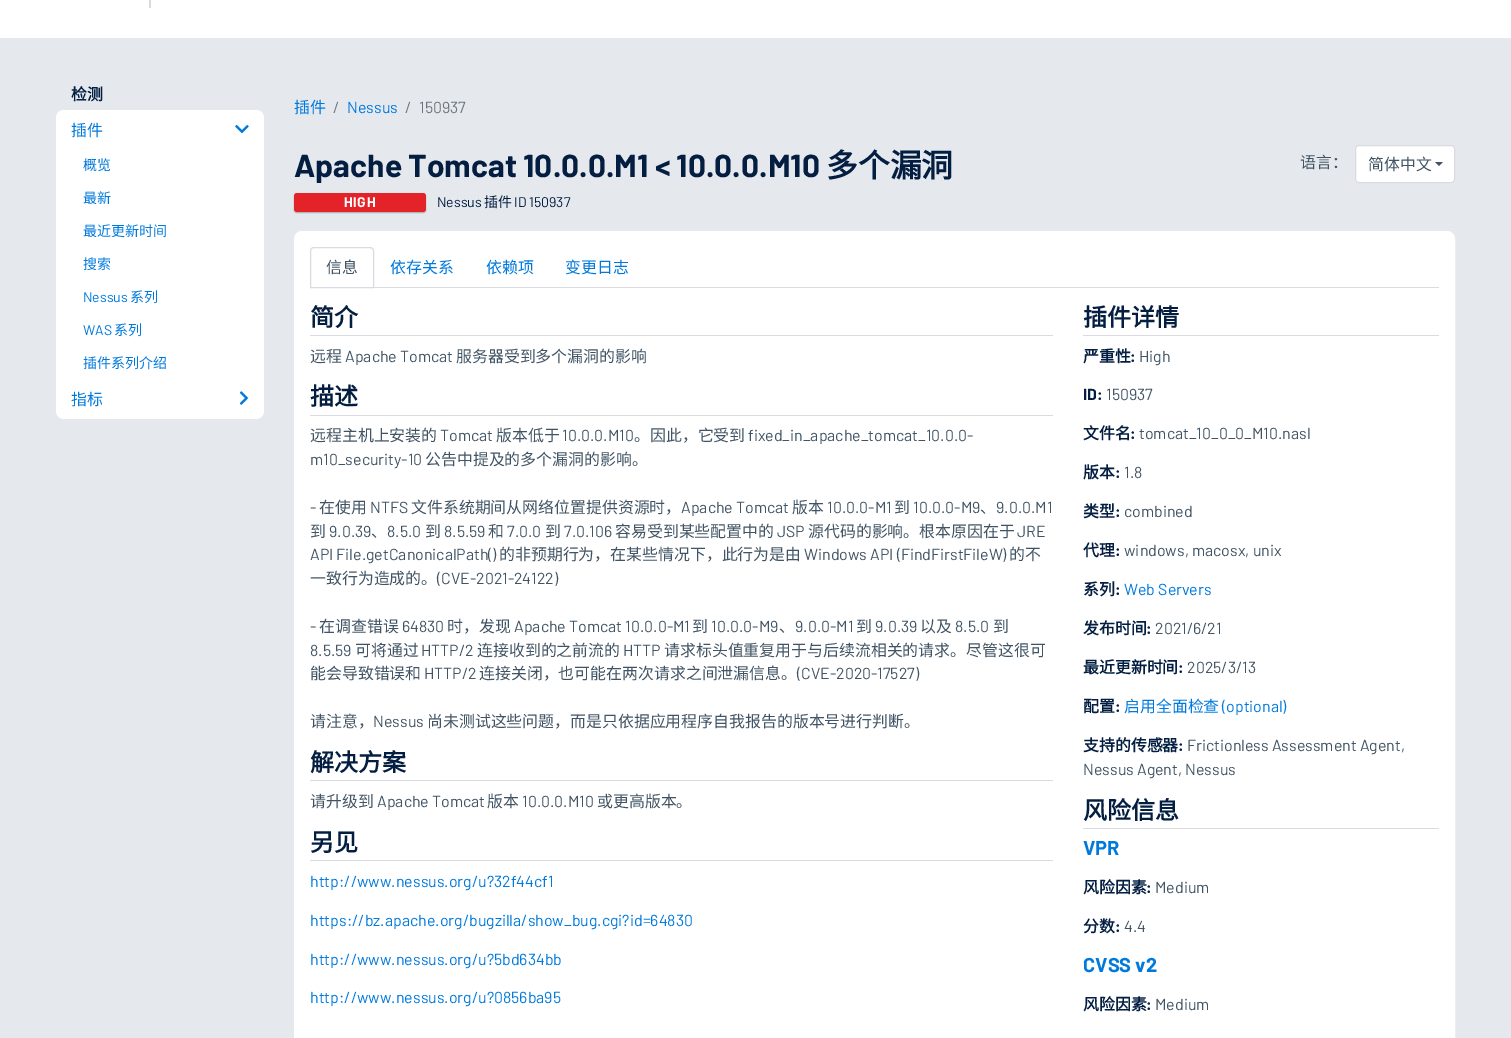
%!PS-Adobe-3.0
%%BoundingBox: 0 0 1511 1038
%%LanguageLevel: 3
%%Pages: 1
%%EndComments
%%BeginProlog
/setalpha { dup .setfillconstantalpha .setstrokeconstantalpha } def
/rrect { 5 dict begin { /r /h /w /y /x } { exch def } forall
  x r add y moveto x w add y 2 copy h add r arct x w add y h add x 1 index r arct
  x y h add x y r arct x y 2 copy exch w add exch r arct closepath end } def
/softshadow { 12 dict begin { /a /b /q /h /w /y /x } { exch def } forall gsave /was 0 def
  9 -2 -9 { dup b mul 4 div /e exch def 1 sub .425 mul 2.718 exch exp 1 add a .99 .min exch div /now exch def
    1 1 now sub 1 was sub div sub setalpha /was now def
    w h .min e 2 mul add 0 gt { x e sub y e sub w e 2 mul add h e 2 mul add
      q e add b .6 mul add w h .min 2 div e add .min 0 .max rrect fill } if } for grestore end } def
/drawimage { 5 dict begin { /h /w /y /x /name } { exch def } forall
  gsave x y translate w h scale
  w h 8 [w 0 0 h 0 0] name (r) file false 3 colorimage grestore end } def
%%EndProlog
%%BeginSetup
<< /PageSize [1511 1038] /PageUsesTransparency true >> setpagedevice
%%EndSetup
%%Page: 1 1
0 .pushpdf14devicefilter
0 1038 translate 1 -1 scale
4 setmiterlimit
1 setgray
0 0 1511 1038 rectfill
0.851 0.859 0.878 setrgbcolor
149 0 2 8 rectfill
0.898 0.914 0.929 setrgbcolor
0 38 1511 1000 rectfill
1 setgray
56 110 208 309 8 rrect fill
(images/1.raw) 235 125 14 9 drawimage
(images/2.raw) 239 391 9 14 drawimage
0 setgray
294 194 132 19 3 0.5 0.25 softshadow
0.894 0.137 0.161 setrgbcolor
294 193 132 19 3 rrect fill
1 setgray
1355.5 145.5 99 37 3.5 rrect gsave fill grestore
0.851 0.859 0.878 setrgbcolor
stroke
0.255 0.329 0.396 setrgbcolor
newpath 1435 162 moveto 1443 162 lineto 1439 166 lineto closepath fill
1 setgray
294.5 231.5 1160 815 7.5 rrect gsave fill grestore
stroke
0.851 0.859 0.878 setrgbcolor
374 287 1065 1 rectfill
newpath 314 247.5 moveto 370 247.5 lineto 372 247.5 373.5 249 373.5 251 curveto 373.5 287.5 lineto 310.5 287.5 lineto 310.5 251 lineto 310.5 249 312 247.5 314 247.5 curveto closepath stroke
310 335 743 1 rectfill
310 415 743 1 rectfill
310 780 743 1 rectfill
310 860 743 1 rectfill
1083 335 356 1 rectfill
1083 828 356 1 rectfill
/NotoSansCJKSC-Bold [15.9 0 0 -15.9 0 0] selectfont
0.016 0.118 0.259 setrgbcolor
71 100 moveto (检测) show
/NotoSansCJKSC-Regular [15.9 0 0 -15.9 0 0] selectfont
0 0.475 0.867 setrgbcolor
71 136 moveto (插件) show
/NotoSansCJKSC-Regular [14 0 0 -14 0 0] selectfont
83 170 moveto (概览) show
83 203 moveto (最新) show
83 236 moveto (最近更新时间) show
83 269 moveto (搜索) show
/Barlow-Regular [14 0 0 -14 0 0] selectfont
83 302 moveto (Nessus) show
/NotoSansCJKSC-Regular [14 0 0 -14 0 0] selectfont
130 302 moveto (系列) show
/Barlow-Regular [14 0 0 -14 0 0] selectfont
83 335 moveto (WAS) show
/NotoSansCJKSC-Regular [14 0 0 -14 0 0] selectfont
114 335 moveto (系列) show
83 368 moveto (插件系列介绍) show
/NotoSansCJKSC-Regular [15.9 0 0 -15.9 0 0] selectfont
71 405 moveto (指标) show
294 113 moveto (插件) show
/Barlow-Regular [15.9 0 0 -15.9 0 0] selectfont
0.424 0.459 0.49 setrgbcolor
333 113 moveto (/) show
0 0.475 0.867 setrgbcolor
347 113 moveto (Nessus) show
0.424 0.459 0.49 setrgbcolor
405 113 moveto (/) show
419 113 moveto (150937) show
/Barlow-Bold [31.75 0 0 -31.75 0 0] selectfont
0.016 0.118 0.259 setrgbcolor
294 177 moveto (Apache Tomcat 10.0.0.M1 < 10.0.0.M10) show
/NotoSansCJKSC-Bold [31.75 0 0 -31.75 0 0] selectfont
826 177 moveto (多个漏洞) show
/Barlow-Bold [14 0 0 -14 0 0] selectfont
1 setgray
344 207 moveto 0.5 0 (HIGH) ashow
/Barlow-Regular [14 0 0 -14 0 0] selectfont
0.016 0.118 0.259 setrgbcolor
437 207 moveto (Nessus) show
/NotoSansCJKSC-Regular [14 0 0 -14 0 0] selectfont
484 207 moveto (插件) show
/Barlow-Regular [14 0 0 -14 0 0] selectfont
514 207 moveto (ID 150937) show
/NotoSansCJKSC-Regular [15.9 0 0 -15.9 0 0] selectfont
0.255 0.329 0.396 setrgbcolor
1300 168 moveto (语言：) show
1368 170 moveto (简体中文) show
326 273 moveto (信息) show
0 0.475 0.867 setrgbcolor
390 273 moveto (依存关系) show
486 273 moveto (依赖项) show
565 273 moveto (变更日志) show
/NotoSansCJKSC-Bold [24 0 0 -24 0 0] selectfont
0.016 0.118 0.259 setrgbcolor
310 326 moveto (简介) show
/NotoSansCJKSC-Regular [15.9 0 0 -15.9 0 0] selectfont
0.255 0.329 0.396 setrgbcolor
310 362 moveto (远程) show
/Barlow-Regular [15.9 0 0 -15.9 0 0] selectfont
345 362 moveto (Apache Tomcat) show
/NotoSansCJKSC-Regular [15.9 0 0 -15.9 0 0] selectfont
456 362 moveto (服务器受到多个漏洞的影响) show
/NotoSansCJKSC-Bold [24 0 0 -24 0 0] selectfont
0.016 0.118 0.259 setrgbcolor
310 405 moveto (描述) show
/NotoSansCJKSC-Regular [15.9 0 0 -15.9 0 0] selectfont
0.255 0.329 0.396 setrgbcolor
310 441 moveto (远程主机上安装的) show
/Barlow-Regular [15.9 0 0 -15.9 0 0] selectfont
440 441 moveto (Tomcat) show
/NotoSansCJKSC-Regular [15.9 0 0 -15.9 0 0] selectfont
496 441 moveto (版本低于) show
/Barlow-Regular [15.9 0 0 -15.9 0 0] selectfont
562 441 moveto (10.0.0.M10) show
/NotoSansCJKSC-Regular [15.9 0 0 -15.9 0 0] selectfont
634 441 moveto (。因此，它受到) show
/Barlow-Regular [15.9 0 0 -15.9 0 0] selectfont
748 441 moveto (fixed_in_apache_tomcat_10.0.0-) show
310 465 moveto (m10_security-10) show
/NotoSansCJKSC-Regular [15.9 0 0 -15.9 0 0] selectfont
425 465 moveto (公告中提及的多个漏洞的影响。) show
/Barlow-Regular [15.9 0 0 -15.9 0 0] selectfont
310 513 moveto (-) show
/NotoSansCJKSC-Regular [15.9 0 0 -15.9 0 0] selectfont
319 513 moveto (在使用) show
/Barlow-Regular [15.9 0 0 -15.9 0 0] selectfont
370 513 moveto (NTFS) show
/NotoSansCJKSC-Regular [15.9 0 0 -15.9 0 0] selectfont
411 513 moveto (文件系统期间从网络位置提供资源时，) show
/Barlow-Regular [15.9 0 0 -15.9 0 0] selectfont
681 513 moveto (Apache Tomcat) show
/NotoSansCJKSC-Regular [15.9 0 0 -15.9 0 0] selectfont
792 513 moveto (版本) show
/Barlow-Regular [15.9 0 0 -15.9 0 0] selectfont
827 513 moveto (10.0.0-M1) show
/NotoSansCJKSC-Regular [15.9 0 0 -15.9 0 0] selectfont
894 513 moveto (到) show
/Barlow-Regular [15.9 0 0 -15.9 0 0] selectfont
913 513 moveto (10.0.0-M9) show
996 513 moveto (9.0.0.M1) show
/NotoSansCJKSC-Regular [15.9 0 0 -15.9 0 0] selectfont
980 513 moveto (、) show
310 537 moveto (到) show
/Barlow-Regular [15.9 0 0 -15.9 0 0] selectfont
329 537 moveto (9.0.39) show
/NotoSansCJKSC-Regular [15.9 0 0 -15.9 0 0] selectfont
371 537 moveto (、) show
/Barlow-Regular [15.9 0 0 -15.9 0 0] selectfont
387 537 moveto (8.5.0) show
/NotoSansCJKSC-Regular [15.9 0 0 -15.9 0 0] selectfont
425 537 moveto (到) show
/Barlow-Regular [15.9 0 0 -15.9 0 0] selectfont
444 537 moveto (8.5.59) show
/NotoSansCJKSC-Regular [15.9 0 0 -15.9 0 0] selectfont
488 537 moveto (和) show
/Barlow-Regular [15.9 0 0 -15.9 0 0] selectfont
507 537 moveto (7.0.0) show
/NotoSansCJKSC-Regular [15.9 0 0 -15.9 0 0] selectfont
545 537 moveto (到) show
/Barlow-Regular [15.9 0 0 -15.9 0 0] selectfont
564 537 moveto (7.0.106) show
/NotoSansCJKSC-Regular [15.9 0 0 -15.9 0 0] selectfont
615 537 moveto (容易受到某些配置中的) show
/Barlow-Regular [15.9 0 0 -15.9 0 0] selectfont
777 537 moveto (JSP) show
/NotoSansCJKSC-Regular [15.9 0 0 -15.9 0 0] selectfont
808 537 moveto (源代码的影响。根本原因在于) show
/Barlow-Regular [15.9 0 0 -15.9 0 0] selectfont
1017 537 moveto (JRE) show
310 560 moveto (API File.getCanonicalPath\(\)) show
/NotoSansCJKSC-Regular [15.9 0 0 -15.9 0 0] selectfont
499 560 moveto (的非预期行为，在某些情况下，此行为是由) show
/Barlow-Regular [15.9 0 0 -15.9 0 0] selectfont
804 560 moveto (Windows API \(FindFirstFileW\)) show
/NotoSansCJKSC-Regular [15.9 0 0 -15.9 0 0] selectfont
1009 560 moveto (的不) show
310 584 moveto (一致行为造成的。) show
/Barlow-Regular [15.9 0 0 -15.9 0 0] selectfont
437 584 moveto (\(CVE-2021-24122\)) show
310 632 moveto (-) show
/NotoSansCJKSC-Regular [15.9 0 0 -15.9 0 0] selectfont
319 632 moveto (在调查错误) show
/Barlow-Regular [15.9 0 0 -15.9 0 0] selectfont
402 632 moveto (64830) show
/NotoSansCJKSC-Regular [15.9 0 0 -15.9 0 0] selectfont
447 632 moveto (时，发现) show
/Barlow-Regular [15.9 0 0 -15.9 0 0] selectfont
514 632 moveto (Apache Tomcat 10.0.0-M1) show
/NotoSansCJKSC-Regular [15.9 0 0 -15.9 0 0] selectfont
692 632 moveto (到) show
/Barlow-Regular [15.9 0 0 -15.9 0 0] selectfont
711 632 moveto (10.0.0-M9) show
795 632 moveto (9.0.0-M1) show
/NotoSansCJKSC-Regular [15.9 0 0 -15.9 0 0] selectfont
856 632 moveto (到) show
/Barlow-Regular [15.9 0 0 -15.9 0 0] selectfont
875 632 moveto (9.0.39) show
/NotoSansCJKSC-Regular [15.9 0 0 -15.9 0 0] selectfont
920 632 moveto (以及) show
/Barlow-Regular [15.9 0 0 -15.9 0 0] selectfont
955 632 moveto (8.5.0) show
/NotoSansCJKSC-Regular [15.9 0 0 -15.9 0 0] selectfont
993 632 moveto (到) show
779 632 moveto (、) show
/Barlow-Regular [15.9 0 0 -15.9 0 0] selectfont
310 656 moveto (8.5.59) show
/NotoSansCJKSC-Regular [15.9 0 0 -15.9 0 0] selectfont
355 656 moveto (可将通过) show
/Barlow-Regular [15.9 0 0 -15.9 0 0] selectfont
421 656 moveto (HTTP/2) show
/NotoSansCJKSC-Regular [15.9 0 0 -15.9 0 0] selectfont
477 656 moveto (连接收到的之前流的) show
/Barlow-Regular [15.9 0 0 -15.9 0 0] selectfont
623 656 moveto (HTTP) show
/NotoSansCJKSC-Regular [15.9 0 0 -15.9 0 0] selectfont
664 656 moveto (请求标头值重复用于与后续流相关的请求。尽管这很可) show
310 679 moveto (能会导致错误和) show
/Barlow-Regular [15.9 0 0 -15.9 0 0] selectfont
424 679 moveto (HTTP/2) show
/NotoSansCJKSC-Regular [15.9 0 0 -15.9 0 0] selectfont
479 679 moveto (连接关闭，也可能在两次请求之间泄漏信息。) show
/Barlow-Regular [15.9 0 0 -15.9 0 0] selectfont
797 679 moveto (\(CVE-2020-17527\)) show
/NotoSansCJKSC-Regular [15.9 0 0 -15.9 0 0] selectfont
310 727 moveto (请注意，) show
/Barlow-Regular [15.9 0 0 -15.9 0 0] selectfont
373 727 moveto (Nessus) show
/NotoSansCJKSC-Regular [15.9 0 0 -15.9 0 0] selectfont
427 727 moveto (尚未测试这些问题，而是只依据应用程序自我报告的版本号进行判断。) show
/NotoSansCJKSC-Bold [24 0 0 -24 0 0] selectfont
0.016 0.118 0.259 setrgbcolor
310 771 moveto (解决方案) show
/NotoSansCJKSC-Regular [15.9 0 0 -15.9 0 0] selectfont
0.255 0.329 0.396 setrgbcolor
310 807 moveto (请升级到) show
/Barlow-Regular [15.9 0 0 -15.9 0 0] selectfont
377 807 moveto (Apache Tomcat) show
/NotoSansCJKSC-Regular [15.9 0 0 -15.9 0 0] selectfont
487 807 moveto (版本) show
/Barlow-Regular [15.9 0 0 -15.9 0 0] selectfont
522 807 moveto (10.0.0.M10) show
/NotoSansCJKSC-Regular [15.9 0 0 -15.9 0 0] selectfont
597 807 moveto (或更高版本。) show
/NotoSansCJKSC-Bold [24 0 0 -24 0 0] selectfont
0.016 0.118 0.259 setrgbcolor
310 851 moveto (另见) show
/Barlow-Regular [15.9 0 0 -15.9 0 0] selectfont
0 0.475 0.867 setrgbcolor
310 887 moveto (http://www.nessus.org/u?32f44cf1) show
310 926 moveto (https://bz.apache.org/bugzilla/show_bug.cgi?id=64830) show
310 965 moveto (http://www.nessus.org/u?5bd634bb) show
310 1003 moveto (http://www.nessus.org/u?0856ba95) show
/NotoSansCJKSC-Bold [24 0 0 -24 0 0] selectfont
0.016 0.118 0.259 setrgbcolor
1083 326 moveto (插件详情) show
/NotoSansCJKSC-Bold [15.9 0 0 -15.9 0 0] selectfont
1083 362 moveto (严重性) show
/Barlow-Bold [15.9 0 0 -15.9 0 0] selectfont
1130 362 moveto (:) show
/Barlow-Regular [15.9 0 0 -15.9 0 0] selectfont
0.255 0.329 0.396 setrgbcolor
1139 362 moveto (High) show
/Barlow-Bold [15.9 0 0 -15.9 0 0] selectfont
0.016 0.118 0.259 setrgbcolor
1083 400 moveto (ID:) show
/Barlow-Regular [15.9 0 0 -15.9 0 0] selectfont
0.255 0.329 0.396 setrgbcolor
1106 400 moveto (150937) show
/NotoSansCJKSC-Bold [15.9 0 0 -15.9 0 0] selectfont
0.016 0.118 0.259 setrgbcolor
1083 439 moveto (文件名) show
/Barlow-Bold [15.9 0 0 -15.9 0 0] selectfont
1130 439 moveto (:) show
/Barlow-Regular [15.9 0 0 -15.9 0 0] selectfont
0.255 0.329 0.396 setrgbcolor
1139 439 moveto (tomcat_10_0_0_M10.nasl) show
/NotoSansCJKSC-Bold [15.9 0 0 -15.9 0 0] selectfont
0.016 0.118 0.259 setrgbcolor
1083 478 moveto (版本) show
/Barlow-Bold [15.9 0 0 -15.9 0 0] selectfont
1115 478 moveto (:) show
/Barlow-Regular [15.9 0 0 -15.9 0 0] selectfont
0.255 0.329 0.396 setrgbcolor
1124 478 moveto (1.8) show
/NotoSansCJKSC-Bold [15.9 0 0 -15.9 0 0] selectfont
0.016 0.118 0.259 setrgbcolor
1083 517 moveto (类型) show
/Barlow-Bold [15.9 0 0 -15.9 0 0] selectfont
1115 517 moveto (:) show
/Barlow-Regular [15.9 0 0 -15.9 0 0] selectfont
0.255 0.329 0.396 setrgbcolor
1124 517 moveto (combined) show
/NotoSansCJKSC-Bold [15.9 0 0 -15.9 0 0] selectfont
0.016 0.118 0.259 setrgbcolor
1083 556 moveto (代理) show
/Barlow-Bold [15.9 0 0 -15.9 0 0] selectfont
1115 556 moveto (:) show
/Barlow-Regular [15.9 0 0 -15.9 0 0] selectfont
0.255 0.329 0.396 setrgbcolor
1124 556 moveto (windows, macosx, unix) show
/NotoSansCJKSC-Bold [15.9 0 0 -15.9 0 0] selectfont
0.016 0.118 0.259 setrgbcolor
1083 595 moveto (系列) show
/Barlow-Bold [15.9 0 0 -15.9 0 0] selectfont
1115 595 moveto (:) show
/Barlow-Regular [15.9 0 0 -15.9 0 0] selectfont
0 0.475 0.867 setrgbcolor
1124 595 moveto (Web Servers) show
/NotoSansCJKSC-Bold [15.9 0 0 -15.9 0 0] selectfont
0.016 0.118 0.259 setrgbcolor
1083 634 moveto (发布时间) show
/Barlow-Bold [15.9 0 0 -15.9 0 0] selectfont
1146 634 moveto (:) show
/Barlow-Regular [15.9 0 0 -15.9 0 0] selectfont
0.255 0.329 0.396 setrgbcolor
1155 634 moveto (2021/6/21) show
/NotoSansCJKSC-Bold [15.9 0 0 -15.9 0 0] selectfont
0.016 0.118 0.259 setrgbcolor
1083 673 moveto (最近更新时间) show
/Barlow-Bold [15.9 0 0 -15.9 0 0] selectfont
1178 673 moveto (:) show
/Barlow-Regular [15.9 0 0 -15.9 0 0] selectfont
0.255 0.329 0.396 setrgbcolor
1187 673 moveto (2025/3/13) show
/NotoSansCJKSC-Bold [15.9 0 0 -15.9 0 0] selectfont
0.016 0.118 0.259 setrgbcolor
1083 712 moveto (配置) show
/Barlow-Bold [15.9 0 0 -15.9 0 0] selectfont
1115 712 moveto (:) show
/NotoSansCJKSC-Regular [15.9 0 0 -15.9 0 0] selectfont
0 0.475 0.867 setrgbcolor
1124 712 moveto (启用全面检查) show
/Barlow-Regular [15.9 0 0 -15.9 0 0] selectfont
1222 712 moveto (\(optional\)) show
/NotoSansCJKSC-Bold [15.9 0 0 -15.9 0 0] selectfont
0.016 0.118 0.259 setrgbcolor
1083 751 moveto (支持的传感器) show
/Barlow-Bold [15.9 0 0 -15.9 0 0] selectfont
1178 751 moveto (:) show
/Barlow-Regular [15.9 0 0 -15.9 0 0] selectfont
0.255 0.329 0.396 setrgbcolor
1187 751 moveto (Frictionless Assessment Agent,) show
1083 775 moveto (Nessus Agent, Nessus) show
/NotoSansCJKSC-Bold [24 0 0 -24 0 0] selectfont
0.016 0.118 0.259 setrgbcolor
1083 819 moveto (风险信息) show
/Barlow-Bold [20 0 0 -20 0 0] selectfont
0 0.475 0.867 setrgbcolor
1083 855 moveto (VPR) show
/NotoSansCJKSC-Bold [15.9 0 0 -15.9 0 0] selectfont
0.016 0.118 0.259 setrgbcolor
1083 893 moveto (风险因素) show
/Barlow-Bold [15.9 0 0 -15.9 0 0] selectfont
1146 893 moveto (:) show
/Barlow-Regular [15.9 0 0 -15.9 0 0] selectfont
0.255 0.329 0.396 setrgbcolor
1155 893 moveto (Medium) show
/NotoSansCJKSC-Bold [15.9 0 0 -15.9 0 0] selectfont
0.016 0.118 0.259 setrgbcolor
1083 932 moveto (分数) show
/Barlow-Bold [15.9 0 0 -15.9 0 0] selectfont
1115 932 moveto (:) show
/Barlow-Regular [15.9 0 0 -15.9 0 0] selectfont
0.255 0.329 0.396 setrgbcolor
1124 932 moveto (4.4) show
/Barlow-Bold [20 0 0 -20 0 0] selectfont
0 0.475 0.867 setrgbcolor
1083 972 moveto (CVSS v2) show
/NotoSansCJKSC-Bold [15.9 0 0 -15.9 0 0] selectfont
0.016 0.118 0.259 setrgbcolor
1083 1010 moveto (风险因素) show
/Barlow-Bold [15.9 0 0 -15.9 0 0] selectfont
1146 1010 moveto (:) show
/Barlow-Regular [15.9 0 0 -15.9 0 0] selectfont
0.255 0.329 0.396 setrgbcolor
1155 1010 moveto (Medium) show
.poppdf14devicefilter showpage
%%EOF
